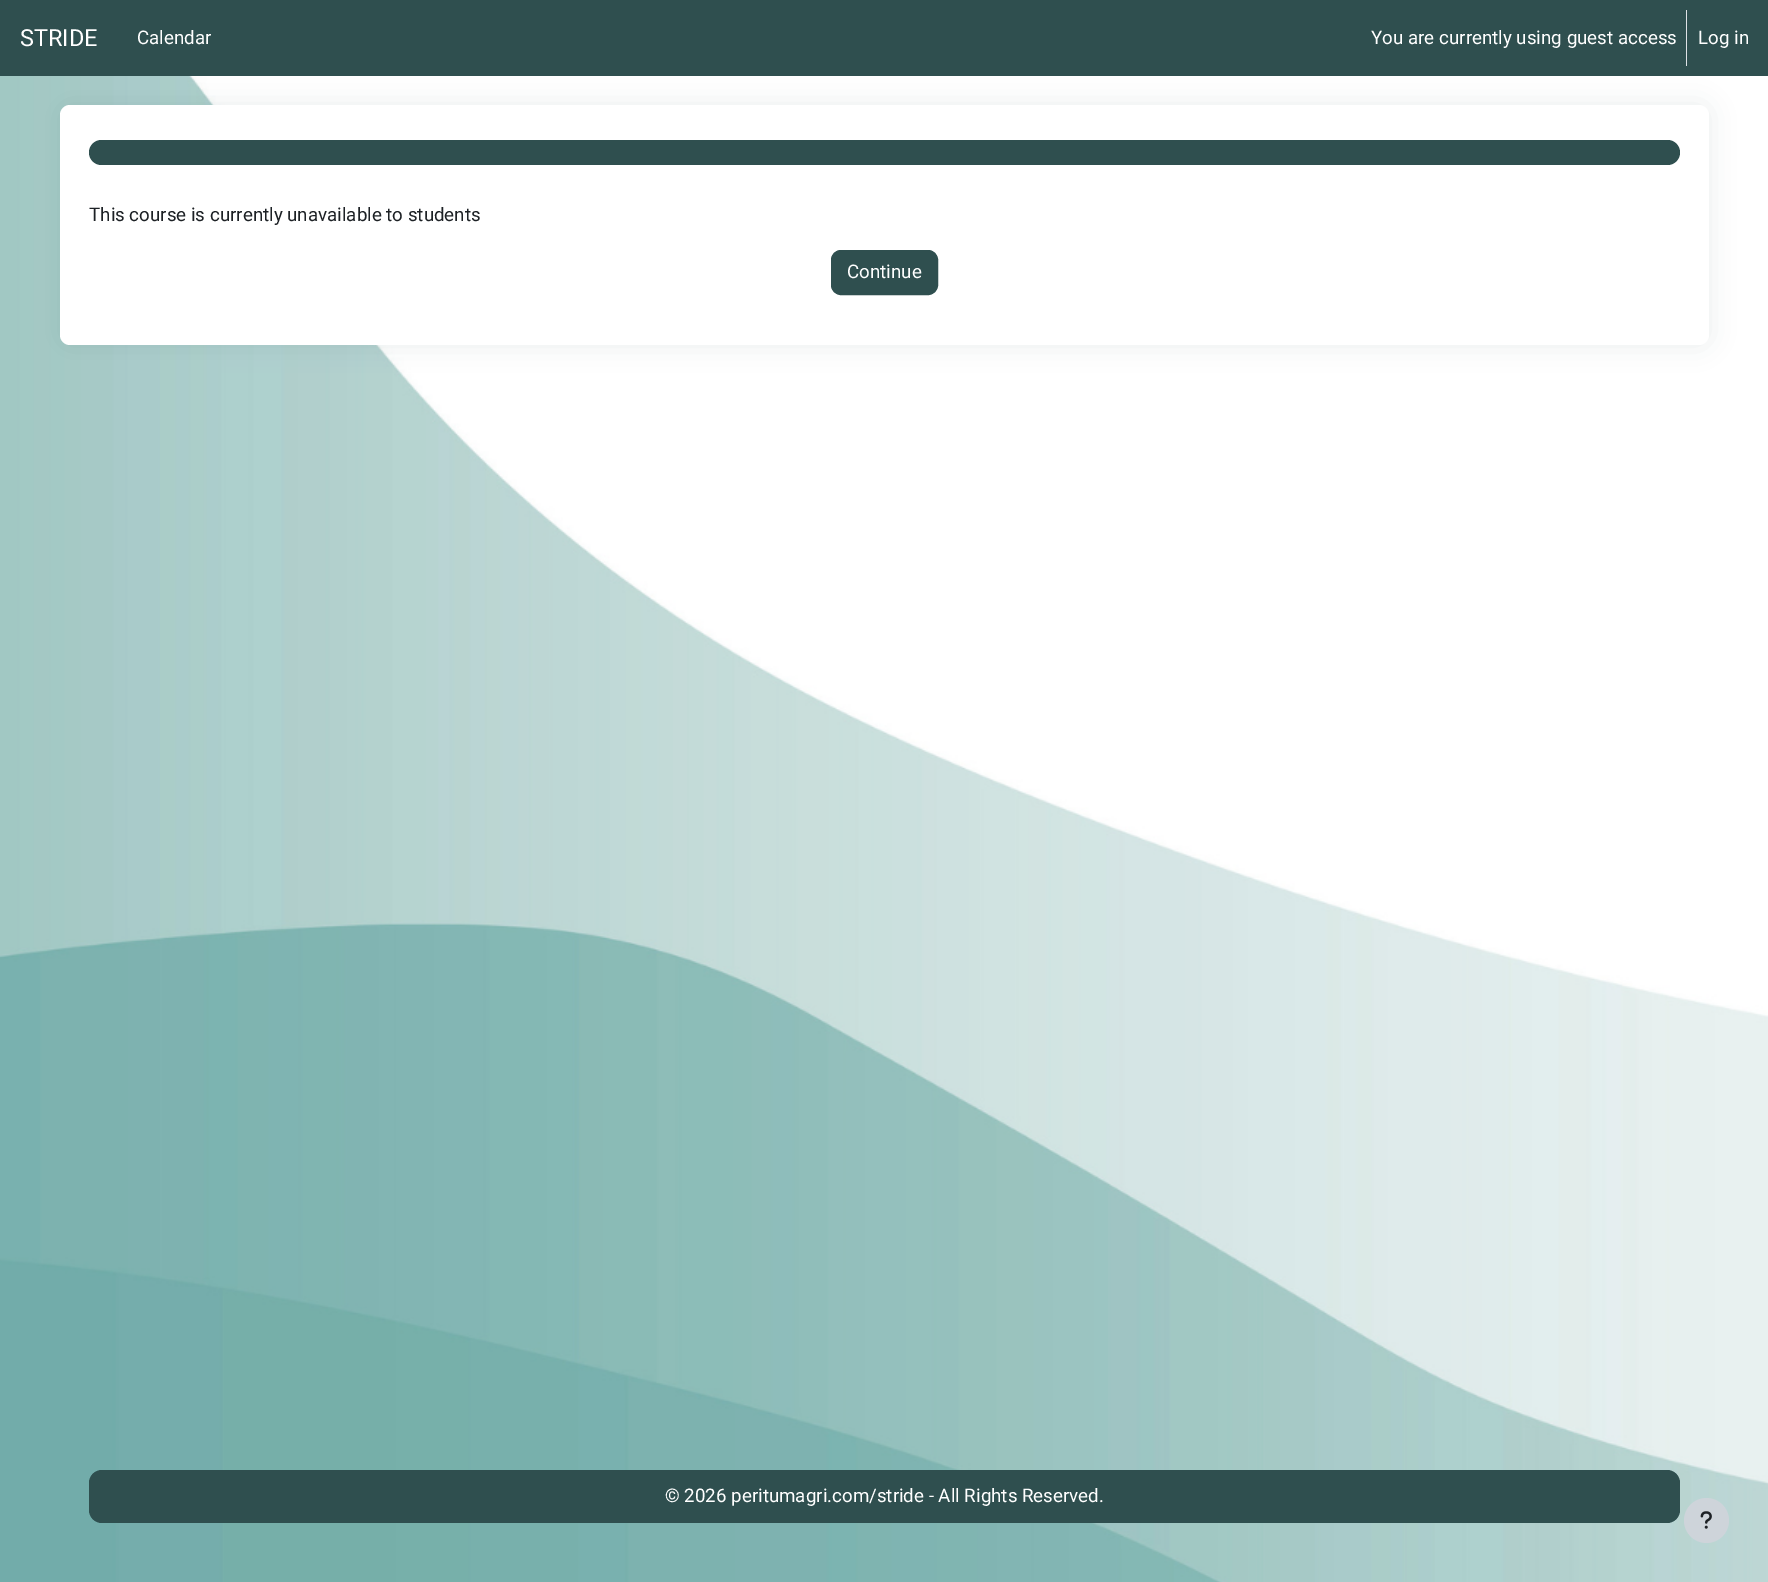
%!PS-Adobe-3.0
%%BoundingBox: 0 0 1768 1582
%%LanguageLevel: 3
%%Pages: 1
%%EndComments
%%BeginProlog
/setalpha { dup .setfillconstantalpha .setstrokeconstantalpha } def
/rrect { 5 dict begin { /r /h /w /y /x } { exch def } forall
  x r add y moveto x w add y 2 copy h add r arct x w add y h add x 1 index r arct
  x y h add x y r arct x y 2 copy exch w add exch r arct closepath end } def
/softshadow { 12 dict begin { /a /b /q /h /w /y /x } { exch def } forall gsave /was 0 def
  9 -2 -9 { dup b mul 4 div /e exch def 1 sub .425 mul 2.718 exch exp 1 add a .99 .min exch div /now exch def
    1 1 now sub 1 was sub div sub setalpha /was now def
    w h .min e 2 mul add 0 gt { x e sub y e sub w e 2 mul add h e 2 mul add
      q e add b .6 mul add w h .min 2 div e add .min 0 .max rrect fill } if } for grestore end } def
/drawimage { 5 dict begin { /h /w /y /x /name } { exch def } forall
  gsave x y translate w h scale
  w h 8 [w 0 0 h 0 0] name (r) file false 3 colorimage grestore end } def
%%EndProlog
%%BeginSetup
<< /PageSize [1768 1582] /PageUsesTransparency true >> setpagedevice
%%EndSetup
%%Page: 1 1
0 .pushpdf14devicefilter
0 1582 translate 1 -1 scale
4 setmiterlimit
1 setgray
0 0 1768 1582 rectfill
(images/1.raw) 0 76 1768 1506 drawimage
0.184 0.31 0.31 setrgbcolor
60 105 1649 240 10 12.5 0.1 softshadow
0 0 1768 76 rectfill
0.871 0.886 0.902 setrgbcolor
1686 10 1 56 rectfill
1 setgray
60 105 1649 240 10 rrect fill
0.184 0.31 0.31 setrgbcolor
89 140 1591 25 12.5 rrect fill
831.5 250.5 106 44 9.5 rrect gsave fill grestore
stroke
89 1470 1591 53 13 rrect fill
0.808 0.831 0.855 setrgbcolor
newpath 1706.5 1520.5 22.5 0 360 arc closepath fill
(images/2.raw) 1700 1511 12 18 drawimage
/Roboto-Regular [23.5 0 0 -23.5 0 0] selectfont
1 setgray
20 46 moveto (STRIDE) show
/Roboto-Regular [18.75 0 0 -18.75 0 0] selectfont
137 44 moveto (Calendar) show
1371 44 moveto (You are currently using guest access) show
1698 44 moveto (Log in) show
0.114 0.129 0.145 setrgbcolor
89 221 moveto (This course is currently unavailable to students) show
1 setgray
847 278 moveto (Continue) show
665 1502 moveto (© 2026 peritumagri.com/stride - All Rights Reserved.) show
.poppdf14devicefilter showpage
%%EOF
